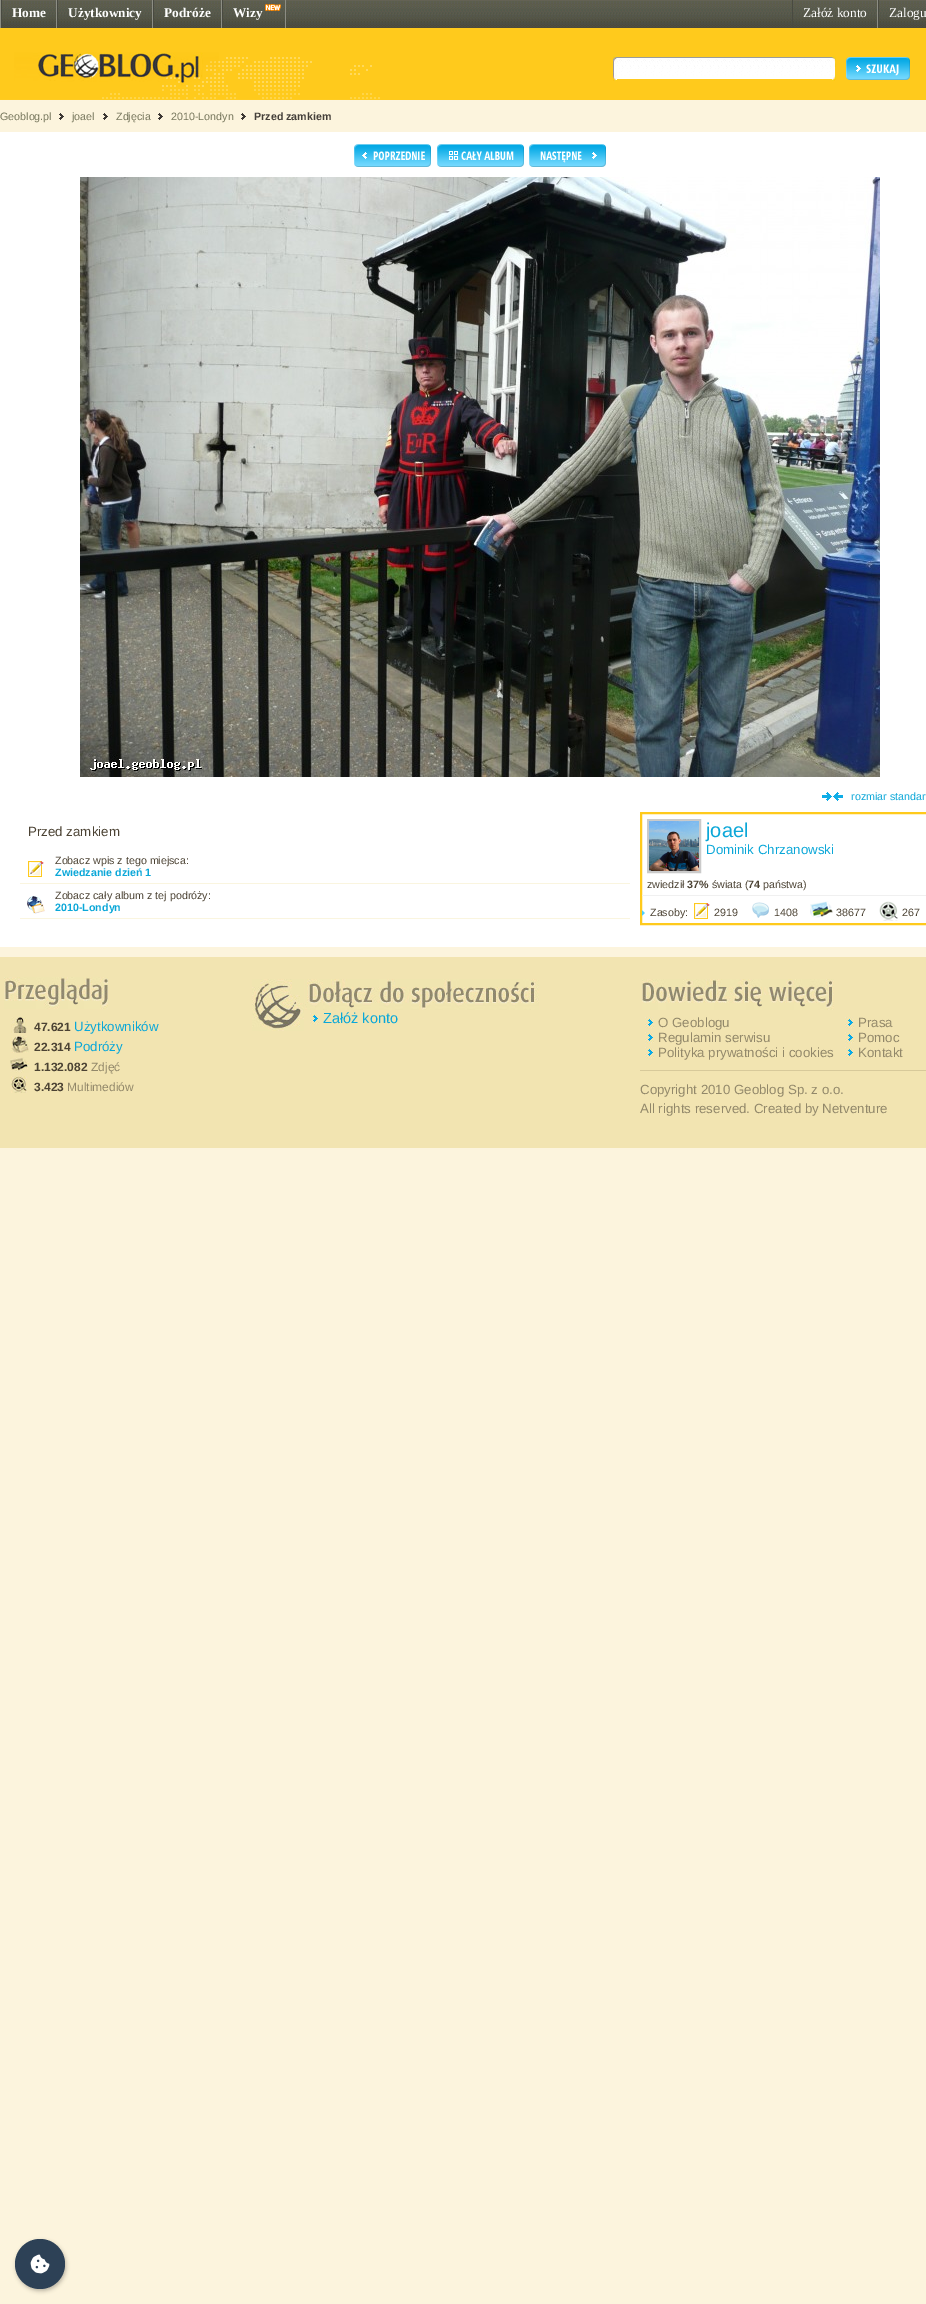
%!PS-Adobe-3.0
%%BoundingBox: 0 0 926 2304
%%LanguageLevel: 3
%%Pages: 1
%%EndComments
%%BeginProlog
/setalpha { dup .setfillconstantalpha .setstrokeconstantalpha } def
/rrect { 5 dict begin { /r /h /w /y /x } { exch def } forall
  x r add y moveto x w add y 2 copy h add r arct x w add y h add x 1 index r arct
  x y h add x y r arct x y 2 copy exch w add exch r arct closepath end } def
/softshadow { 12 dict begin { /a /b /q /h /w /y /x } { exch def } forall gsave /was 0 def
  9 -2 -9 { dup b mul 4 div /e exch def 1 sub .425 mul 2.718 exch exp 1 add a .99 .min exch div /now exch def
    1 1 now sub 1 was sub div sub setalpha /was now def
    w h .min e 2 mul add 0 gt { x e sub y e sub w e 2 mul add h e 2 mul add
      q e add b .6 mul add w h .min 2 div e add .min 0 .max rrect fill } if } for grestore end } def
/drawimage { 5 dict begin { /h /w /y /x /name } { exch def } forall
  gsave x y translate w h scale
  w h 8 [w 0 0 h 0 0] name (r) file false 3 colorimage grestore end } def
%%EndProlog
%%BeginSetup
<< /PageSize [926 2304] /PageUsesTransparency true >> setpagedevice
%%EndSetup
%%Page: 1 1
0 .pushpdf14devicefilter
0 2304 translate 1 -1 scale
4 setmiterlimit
0.988 0.957 0.867 setrgbcolor
0 0 926 2304 rectfill
(images/1.raw) 2 0 924 28 drawimage
0.549 0.553 0.514 setrgbcolor
0 0 1 28 rectfill
56 0 1 28 rectfill
0.286 0.29 0.255 setrgbcolor
1 0 1 28 rectfill
0.549 0.553 0.514 setrgbcolor
152 0 1 28 rectfill
0.286 0.29 0.255 setrgbcolor
57 0 1 28 rectfill
0.549 0.553 0.514 setrgbcolor
221 0 1 28 rectfill
0.286 0.29 0.255 setrgbcolor
153 0 1 28 rectfill
0.549 0.553 0.514 setrgbcolor
285 0 1 28 rectfill
0.286 0.29 0.255 setrgbcolor
222 0 1 28 rectfill
(images/2.raw) 265 4 16 7 drawimage
0.549 0.553 0.514 setrgbcolor
877 0 1 28 rectfill
0.286 0.29 0.255 setrgbcolor
792 0 1 28 rectfill
878 0 1 28 rectfill
1 0.792 0.11 setrgbcolor
0 28 926 72 rectfill
(images/3.raw) 0 52 380 48 drawimage
(images/4.raw) 613 56 4 25 drawimage
1 setgray
617 78 215 1 rectfill
(images/5.raw) 617 56 215 22 drawimage
(images/6.raw) 832 56 4 25 drawimage
(images/7.raw) 846 57 64 23 drawimage
(images/8.raw) 59 113 5 7 drawimage
(images/8.raw) 103 113 5 7 drawimage
(images/8.raw) 158 113 5 7 drawimage
(images/8.raw) 241 113 5 7 drawimage
0 132 926 815 rectfill
(images/9.raw) 354 144 77 23 drawimage
(images/10.raw) 437 144 87 23 drawimage
(images/11.raw) 529 144 77 23 drawimage
(images/12.raw) 80 177 800 600 drawimage
(images/13.raw) 822 792 21 9 drawimage
0.98 0.961 0.875 setrgbcolor
20 883 610 1 rectfill
(images/14.raw) 28 861 16 16 drawimage
20 918 610 1 rectfill
(images/15.raw) 27 896 18 18 drawimage
1 0.792 0.11 setrgbcolor
2 setlinewidth
641 813 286 111 rectstroke
0.941 setgray
642 895 284 1 rectfill
0.792 setgray
648 820 52 52 rectstroke
(images/16.raw) 649 821 50 50 drawimage
(images/17.raw) 642 910 3 6 drawimage
(images/14.raw) 694 903 16 16 drawimage
(images/18.raw) 752 902 17 16 drawimage
(images/19.raw) 810 901 23 17 drawimage
(images/20.raw) 879 901 19 20 drawimage
0.949 0.894 0.694 setrgbcolor
0 957 926 191 rectfill
(images/21.raw) 252 979 52 52 drawimage
(images/22.raw) 305 979 234 31 drawimage
(images/23.raw) 310 1013 9 12 drawimage
(images/24.raw) 4 977 104 32 drawimage
(images/25.raw) 11 1017 16 16 drawimage
(images/26.raw) 11 1036 18 17 drawimage
(images/27.raw) 10 1057 19 16 drawimage
(images/28.raw) 11 1076 16 17 drawimage
(images/29.raw) 642 979 192 31 drawimage
0.843 0.788 0.604 setrgbcolor
640 1070 286 1 rectfill
(images/23.raw) 645 1017 9 12 drawimage
(images/23.raw) 645 1032 9 12 drawimage
(images/23.raw) 645 1047 9 12 drawimage
(images/23.raw) 845 1017 9 12 drawimage
(images/23.raw) 845 1032 9 12 drawimage
(images/23.raw) 845 1047 9 12 drawimage
0 setgray
16 2241 50 50 25 2 0.25 softshadow
0.176 0.255 0.337 setrgbcolor
newpath 40 2264 25 0 360 arc closepath fill
(images/30.raw) 30 2254 20 20 drawimage
/LiberationSerif-Bold [13.3 0 0 -13.3 0 0] selectfont
1 setgray
12 17 moveto (Home) show
68 17 moveto (Użytkownicy) show
164 17 moveto (Podróże) show
233 17 moveto (Wizy) show
/LiberationSerif-Regular [13.3 0 0 -13.3 0 0] selectfont
803 17 moveto (Załóż konto) show
889 17 moveto (Zalogu) show
/LiberationSans-Regular [10.7 0 0 -10.7 0 0] selectfont
0.463 0.463 0.361 setrgbcolor
0 120 moveto (Geoblog.pl) show
72 120 moveto (joael) show
116 120 moveto (Zdjęcia) show
171 120 moveto (2010-Londyn) show
/LiberationSans-Bold [10.7 0 0 -10.7 0 0] selectfont
0.267 0.247 0.224 setrgbcolor
254 120 moveto (Przed zamkiem) show
/LiberationSans-Regular [10.7 0 0 -10.7 0 0] selectfont
0.043 0.655 0.847 setrgbcolor
851 800 moveto (rozmiar standar) show
/LiberationSans-Regular [13.3 0 0 -13.3 0 0] selectfont
0.294 0.259 0.2 setrgbcolor
28 836 moveto (Przed zamkiem) show
/LiberationSans-Regular [10.7 0 0 -10.7 0 0] selectfont
55 864 moveto (Zobacz wpis z tego miejsca:) show
/LiberationSans-Bold [10.7 0 0 -10.7 0 0] selectfont
0.043 0.655 0.847 setrgbcolor
55 876 moveto (Zwiedzanie dzień 1) show
/LiberationSans-Regular [10.7 0 0 -10.7 0 0] selectfont
0.294 0.259 0.2 setrgbcolor
55 899 moveto (Zobacz cały album z tej podróży:) show
/LiberationSans-Bold [10.7 0 0 -10.7 0 0] selectfont
0.043 0.655 0.847 setrgbcolor
55 911 moveto (2010-Londyn) show
/LiberationSans-Regular [20 0 0 -20 0 0] selectfont
706 837 moveto (joael) show
/LiberationSans-Regular [13.3 0 0 -13.3 0 0] selectfont
706 854 moveto (Dominik Chrzanowski) show
/LiberationSans-Regular [10.7 0 0 -10.7 0 0] selectfont
0.294 0.259 0.2 setrgbcolor
647 888 moveto (zwiedził) show
/LiberationSans-Bold [10.7 0 0 -10.7 0 0] selectfont
687 888 moveto (37%) show
/LiberationSans-Regular [10.7 0 0 -10.7 0 0] selectfont
712 888 moveto (świata \() show
/LiberationSans-Bold [10.7 0 0 -10.7 0 0] selectfont
748 888 moveto (74) show
/LiberationSans-Regular [10.7 0 0 -10.7 0 0] selectfont
763 888 moveto (państwa\)) show
650 916 moveto (Zasoby:) show
714 916 moveto (2919) show
774 916 moveto (1408) show
836 916 moveto (38677) show
902 916 moveto (267) show
/LiberationSans-Regular [14.5 0 0 -14.5 0 0] selectfont
0.043 0.655 0.847 setrgbcolor
323 1023 moveto (Załóż konto) show
/LiberationSans-Bold [12 0 0 -12 0 0] selectfont
0.294 0.259 0.2 setrgbcolor
34 1031 moveto (47.621) show
/LiberationSans-Regular [13.3 0 0 -13.3 0 0] selectfont
0.043 0.655 0.847 setrgbcolor
74 1031 moveto (Użytkowników) show
/LiberationSans-Bold [12 0 0 -12 0 0] selectfont
0.294 0.259 0.2 setrgbcolor
34 1051 moveto (22.314) show
/LiberationSans-Regular [13.3 0 0 -13.3 0 0] selectfont
0.043 0.655 0.847 setrgbcolor
74 1051 moveto (Podróży) show
/LiberationSans-Bold [12 0 0 -12 0 0] selectfont
0.294 0.259 0.2 setrgbcolor
34 1071 moveto (1.132.082) show
/LiberationSans-Regular [12 0 0 -12 0 0] selectfont
0.573 0.533 0.416 setrgbcolor
91 1071 moveto (Zdjęć) show
/LiberationSans-Bold [12 0 0 -12 0 0] selectfont
0.294 0.259 0.2 setrgbcolor
34 1091 moveto (3.423) show
/LiberationSans-Regular [12 0 0 -12 0 0] selectfont
0.573 0.533 0.416 setrgbcolor
67 1091 moveto (Multimediów) show
/LiberationSans-Regular [13.3 0 0 -13.3 0 0] selectfont
658 1027 moveto (O Geoblogu) show
658 1042 moveto (Regulamin serwisu) show
658 1057 moveto (Polityka prywatności i cookies) show
858 1027 moveto (Prasa) show
858 1042 moveto (Pomoc) show
858 1057 moveto (Kontakt) show
640 1094 moveto (Copyright 2010 Geoblog Sp. z o.o.) show
640 1113 moveto (All rights reserved. Created by Netventure) show
.poppdf14devicefilter showpage
%%EOF
